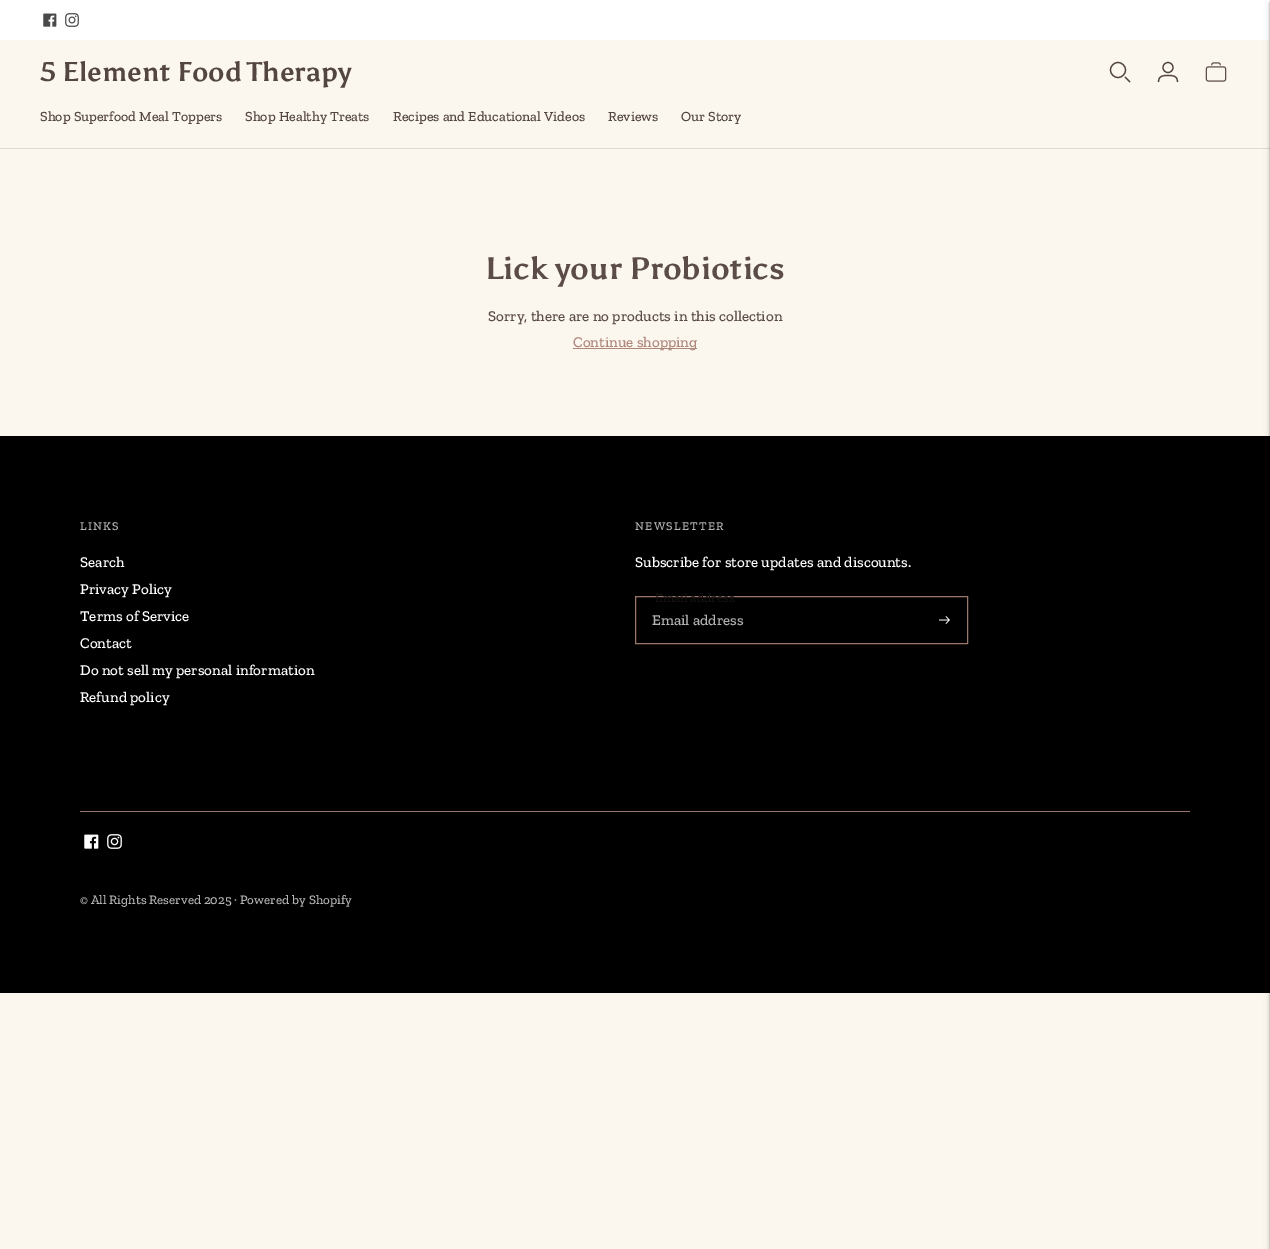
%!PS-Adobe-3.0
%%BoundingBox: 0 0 1270 1249
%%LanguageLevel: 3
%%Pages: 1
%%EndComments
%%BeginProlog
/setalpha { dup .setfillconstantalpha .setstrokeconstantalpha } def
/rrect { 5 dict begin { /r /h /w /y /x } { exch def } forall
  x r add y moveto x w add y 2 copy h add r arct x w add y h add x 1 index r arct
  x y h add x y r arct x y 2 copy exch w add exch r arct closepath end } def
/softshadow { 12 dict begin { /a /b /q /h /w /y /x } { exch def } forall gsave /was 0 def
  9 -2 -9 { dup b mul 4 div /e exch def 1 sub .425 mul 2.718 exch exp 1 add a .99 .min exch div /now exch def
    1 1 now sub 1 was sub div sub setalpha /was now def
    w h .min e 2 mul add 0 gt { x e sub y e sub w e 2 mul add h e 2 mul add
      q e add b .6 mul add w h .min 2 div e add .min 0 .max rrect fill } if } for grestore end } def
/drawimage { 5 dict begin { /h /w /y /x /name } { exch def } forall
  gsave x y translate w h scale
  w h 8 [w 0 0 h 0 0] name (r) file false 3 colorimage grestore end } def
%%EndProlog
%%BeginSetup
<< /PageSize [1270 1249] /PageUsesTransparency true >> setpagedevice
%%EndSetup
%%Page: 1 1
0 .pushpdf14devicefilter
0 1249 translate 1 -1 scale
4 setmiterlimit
0.988 0.969 0.933 setrgbcolor
0 0 1270 1249 rectfill
1 setgray
0 0 1270 40 rectfill
0.882 0.847 0.808 setrgbcolor
0 148 1270 1 rectfill
0 setgray
0 436 1270 557 rectfill
1270 4 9 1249 0 3 0.1 softshadow
1270 2 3 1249 0 1 0.15 softshadow
(images/1.raw) 43 13 14 14 drawimage
(images/2.raw) 65 13 14 14 drawimage
0.325 0.271 0.251 setrgbcolor
1.2 setlinewidth
newpath 1118 70 7.5 0 360 arc closepath stroke
newpath 1125 77 moveto 1130 82 lineto stroke
newpath 1168 67.5 5 0 360 arc closepath stroke
newpath 1158.5 82 moveto 1158.5 75.5 1163 75.5 1168 75.5 curveto 1173 75.5 1177.5 75.5 1177.5 82 curveto stroke
(images/3.raw) 1205 62 22 20 drawimage
0 setgray
1270 4 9 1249 0 3 0.1 softshadow
1270 2 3 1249 0 1 0.15 softshadow
0.682 0.529 0.482 setrgbcolor
573 348 124 1 rectfill
0.604 0.463 0.424 setrgbcolor
1 setlinewidth
635.5 596.5 332 47 rectstroke
(images/4.raw) 939 616 11 8 drawimage
80 811 1110 1 rectfill
(images/5.raw) 84 834 15 15 drawimage
(images/6.raw) 107 834 15 15 drawimage
/Asul-Bold [27 0 0 -27 0 0] selectfont
0.325 0.271 0.251 setrgbcolor
40 81 moveto (5 Element Food Therapy) show
/ZillaSlab-Medium [14 0 0 -14 0 0] selectfont
40 121 moveto (Shop Superfood Meal Toppers) show
245 121 moveto (Shop Healthy Treats) show
393 121 moveto (Recipes and Educational Videos) show
608 121 moveto (Reviews) show
681 121 moveto (Our Story) show
/Asul-Bold [31 0 0 -31 0 0] selectfont
0.357 0.298 0.278 setrgbcolor
485 279 moveto (Lick your Probiotics) show
/ZillaSlab-Medium [15 0 0 -15 0 0] selectfont
488 321 moveto (Sorry, there are no products in this collection) show
0.682 0.529 0.482 setrgbcolor
573 347 moveto (Continue shopping) show
/ZillaSlab-Medium [12 0 0 -12 0 0] selectfont
0.702 setgray
80 530 moveto 1.25 0 (LINKS) ashow
/ZillaSlab-Medium [15 0 0 -15 0 0] selectfont
1 setgray
80 567 moveto (Search) show
80 594 moveto (Privacy Policy) show
80 621 moveto (Terms of Service) show
80 648 moveto (Contact) show
80 675 moveto (Do not sell my personal information) show
80 702 moveto (Refund policy) show
/ZillaSlab-Medium [12 0 0 -12 0 0] selectfont
0.702 setgray
635 530 moveto 1.25 0 (NEWSLETTER) ashow
/ZillaSlab-Medium [15 0 0 -15 0 0] selectfont
1 setgray
635 567 moveto (Subscribe for store updates and discounts.) show
/ZillaSlab-Medium [13 0 0 -13 0 0] selectfont
0.086 0.067 0.059 setrgbcolor
655 602 moveto (Email address) show
/ZillaSlab-Medium [15 0 0 -15 0 0] selectfont
0.702 setgray
652 625 moveto (Email address) show
/ZillaSlab-Medium [13 0 0 -13 0 0] selectfont
80 904 moveto (© All Rights Reserved 2025 · Powered by Shopify) show
.poppdf14devicefilter showpage
%%EOF
